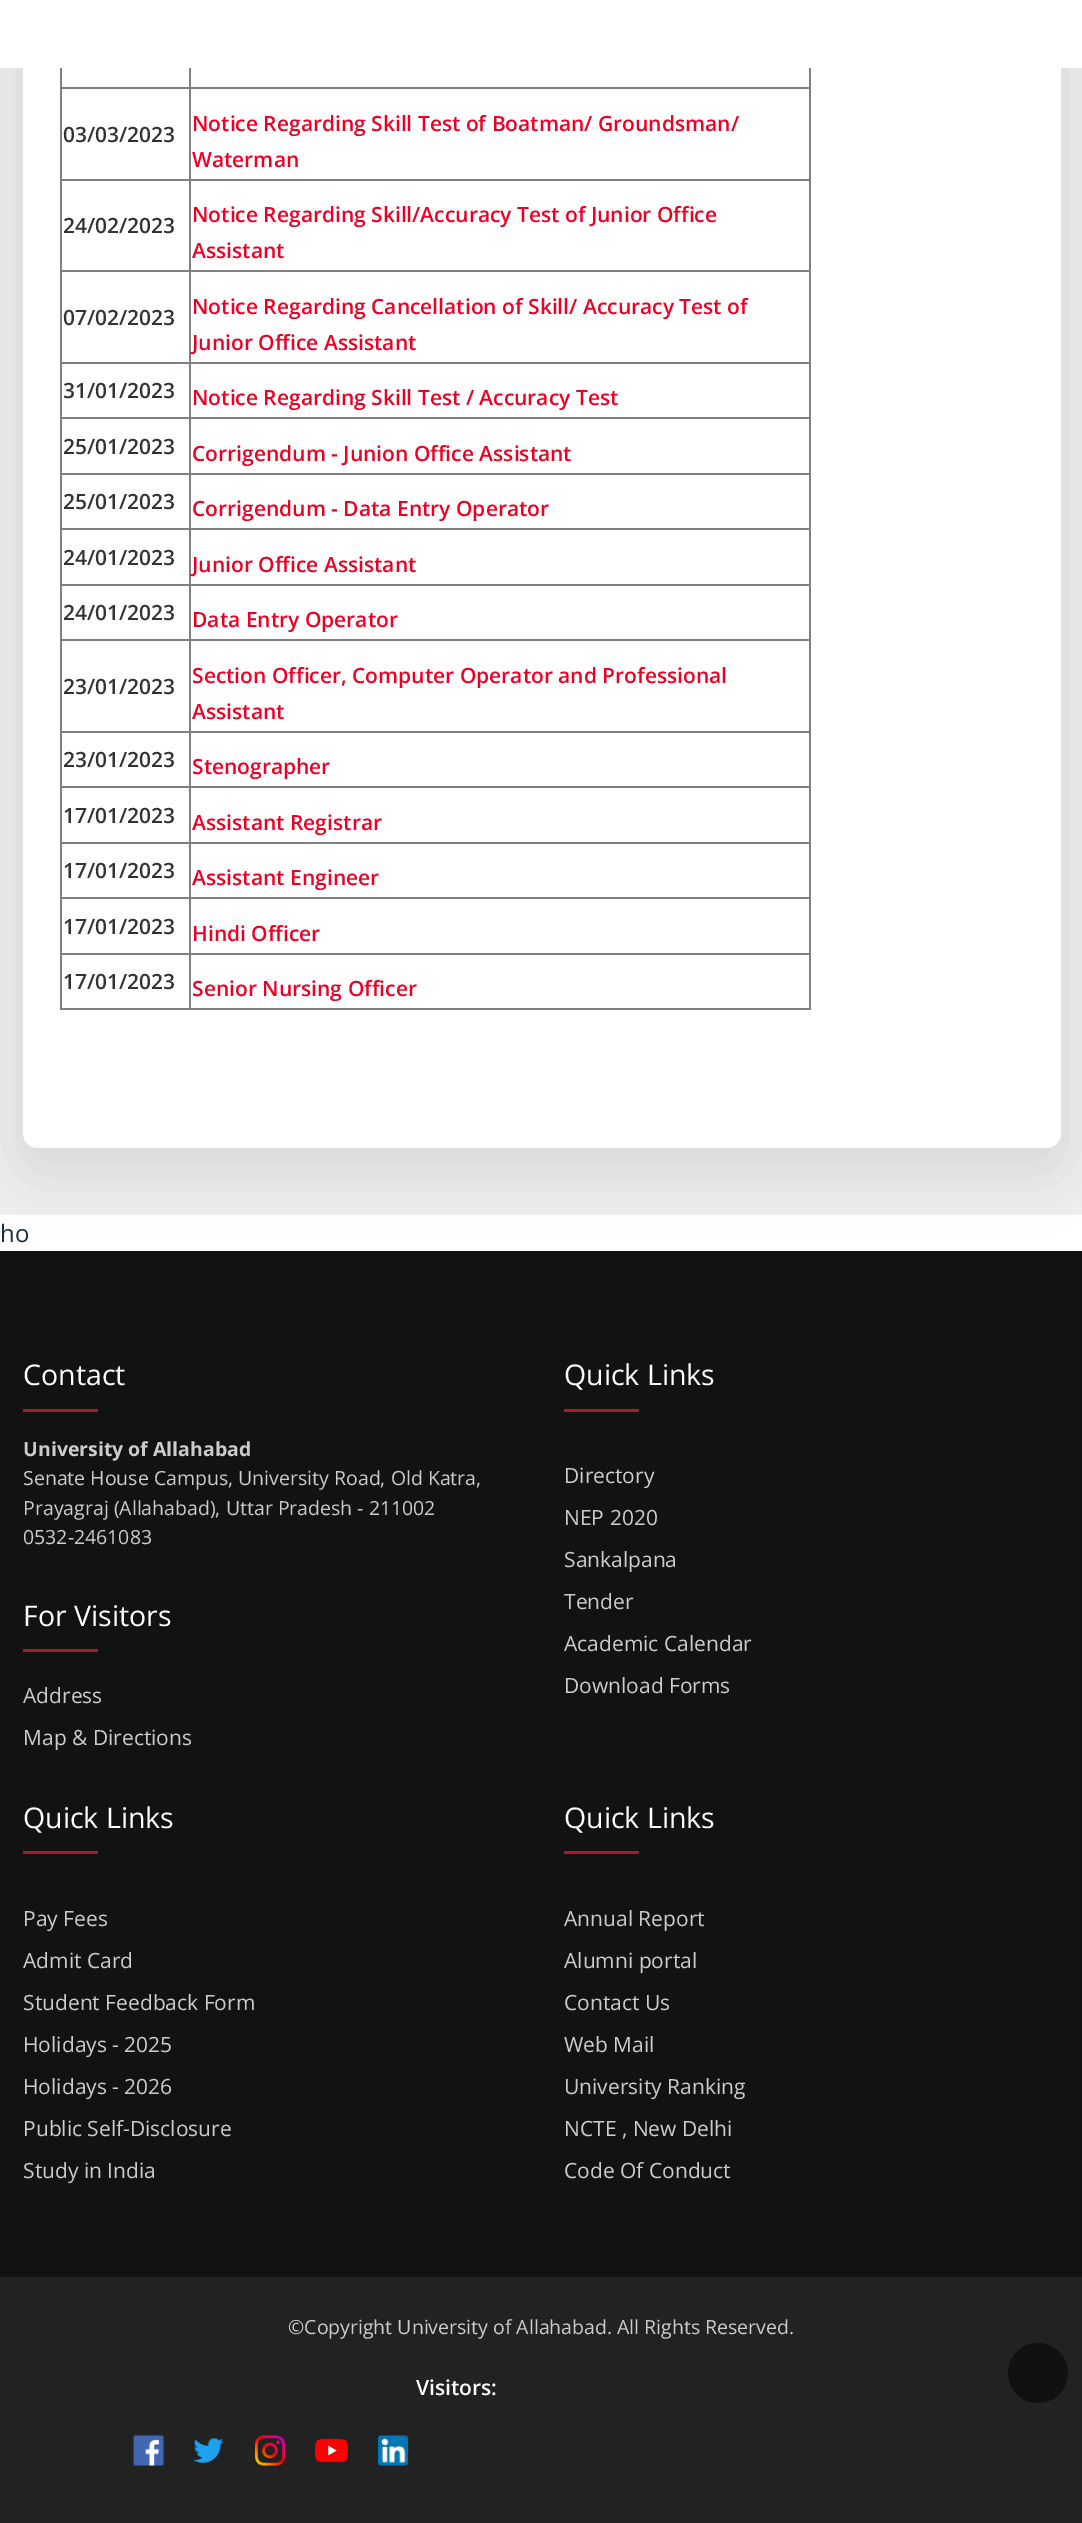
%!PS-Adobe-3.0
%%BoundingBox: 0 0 1082 2523
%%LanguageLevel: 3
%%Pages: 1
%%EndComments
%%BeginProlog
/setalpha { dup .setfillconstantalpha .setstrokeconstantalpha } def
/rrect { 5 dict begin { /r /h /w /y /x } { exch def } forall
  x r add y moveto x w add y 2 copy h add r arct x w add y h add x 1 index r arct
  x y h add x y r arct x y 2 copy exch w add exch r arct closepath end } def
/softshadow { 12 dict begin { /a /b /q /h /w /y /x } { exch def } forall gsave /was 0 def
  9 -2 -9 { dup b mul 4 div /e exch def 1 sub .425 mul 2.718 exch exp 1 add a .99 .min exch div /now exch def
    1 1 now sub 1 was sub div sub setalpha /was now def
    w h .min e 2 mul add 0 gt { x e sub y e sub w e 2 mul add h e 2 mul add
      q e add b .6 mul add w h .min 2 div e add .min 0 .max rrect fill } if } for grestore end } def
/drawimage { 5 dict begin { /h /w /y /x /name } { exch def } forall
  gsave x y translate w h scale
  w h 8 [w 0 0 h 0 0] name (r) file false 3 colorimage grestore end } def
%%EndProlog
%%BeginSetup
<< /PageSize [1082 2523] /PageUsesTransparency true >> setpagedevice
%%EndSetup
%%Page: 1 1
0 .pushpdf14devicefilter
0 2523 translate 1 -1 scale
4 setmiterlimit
1 setgray
0 0 1082 2523 rectfill
0.933 setgray
0 68 1082 1147 rectfill
0 setgray
23 -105 1038 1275 15 30 0.1 softshadow
1 setgray
23 -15 1038 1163 15 rrect fill
0 0 1082 68 rectfill
0.502 setgray
809 68 2 942 rectfill
60 1008 750 2 rectfill
60 68 2 942 rectfill
189 87 621 2 rectfill
189 179 621 2 rectfill
189 270 621 2 rectfill
189 362 621 2 rectfill
189 417 621 2 rectfill
189 473 621 2 rectfill
189 528 621 2 rectfill
189 584 621 2 rectfill
189 639 621 2 rectfill
189 731 621 2 rectfill
189 786 621 2 rectfill
189 842 621 2 rectfill
189 897 621 2 rectfill
189 953 621 2 rectfill
189 953 2 57 rectfill
60 953 131 2 rectfill
189 897 2 57 rectfill
60 897 131 2 rectfill
189 842 2 57 rectfill
60 842 131 2 rectfill
189 786 2 57 rectfill
60 786 131 2 rectfill
189 731 2 57 rectfill
60 731 131 2 rectfill
189 639 2 93 rectfill
60 639 131 2 rectfill
189 584 2 57 rectfill
60 584 131 2 rectfill
189 528 2 57 rectfill
60 528 131 2 rectfill
189 473 2 57 rectfill
60 473 131 2 rectfill
189 417 2 57 rectfill
60 417 131 2 rectfill
189 362 2 57 rectfill
60 362 131 2 rectfill
189 270 2 93 rectfill
60 270 131 2 rectfill
189 179 2 93 rectfill
60 179 131 2 rectfill
189 87 2 93 rectfill
60 87 131 2 rectfill
189 68 2 21 rectfill
0.071 setgray
0 1251 1082 1026 rectfill
0.647 0.11 0.188 setrgbcolor
23 1409 75 3 rectfill
23 1649 75 3 rectfill
564 1409 75 3 rectfill
23 1851 75 3 rectfill
564 1851 75 3 rectfill
0.133 setgray
0 2277 1082 246 rectfill
(images/1.raw) 133 2435 31 31 drawimage
(images/2.raw) 193 2438 31 25 drawimage
(images/3.raw) 255 2435 30 31 drawimage
(images/4.raw) 315 2438 33 25 drawimage
(images/5.raw) 378 2435 30 31 drawimage
0.067 setgray
newpath 1038 2373 30 0 360 arc closepath fill
/OpenSans-SemiBold [21 0 0 -21 0 0] selectfont
0.2 setgray
63 142 moveto (03/03/2023) show
0.925 0 0.137 setrgbcolor
192 131 moveto (Notice Regarding Skill Test of Boatman/ Groundsman/) show
192 167 moveto (Waterman) show
0.2 setgray
63 233 moveto (24/02/2023) show
0.925 0 0.137 setrgbcolor
192 222 moveto (Notice Regarding Skill/Accuracy Test of Junior Office) show
192 258 moveto (Assistant) show
0.2 setgray
63 325 moveto (07/02/2023) show
0.925 0 0.137 setrgbcolor
192 314 moveto (Notice Regarding Cancellation of Skill/ Accuracy Test of) show
192 350 moveto (Junior Office Assistant) show
0.2 setgray
63 398 moveto (31/01/2023) show
0.925 0 0.137 setrgbcolor
192 405 moveto (Notice Regarding Skill Test / Accuracy Test) show
0.2 setgray
63 454 moveto (25/01/2023) show
0.925 0 0.137 setrgbcolor
192 461 moveto (Corrigendum - Junion Office Assistant) show
0.2 setgray
63 509 moveto (25/01/2023) show
0.925 0 0.137 setrgbcolor
192 516 moveto (Corrigendum - Data Entry Operator) show
0.2 setgray
63 565 moveto (24/01/2023) show
0.925 0 0.137 setrgbcolor
192 572 moveto (Junior Office Assistant) show
0.2 setgray
63 620 moveto (24/01/2023) show
0.925 0 0.137 setrgbcolor
192 627 moveto (Data Entry Operator) show
0.2 setgray
63 694 moveto (23/01/2023) show
0.925 0 0.137 setrgbcolor
192 683 moveto (Section Officer, Computer Operator and Professional) show
192 719 moveto (Assistant) show
0.2 setgray
63 767 moveto (23/01/2023) show
0.925 0 0.137 setrgbcolor
192 774 moveto (Stenographer) show
0.2 setgray
63 823 moveto (17/01/2023) show
0.925 0 0.137 setrgbcolor
192 830 moveto (Assistant Registrar) show
0.2 setgray
63 878 moveto (17/01/2023) show
0.925 0 0.137 setrgbcolor
192 885 moveto (Assistant Engineer) show
0.2 setgray
63 934 moveto (17/01/2023) show
0.925 0 0.137 setrgbcolor
192 941 moveto (Hindi Officer) show
0.2 setgray
63 989 moveto (17/01/2023) show
0.925 0 0.137 setrgbcolor
192 996 moveto (Senior Nursing Officer) show
/OpenSans-Regular [24 0 0 -24 0 0] selectfont
0.11 0.188 0.243 setrgbcolor
0 1242 moveto (ho) show
/OpenSans-Regular [28.5 0 0 -28.5 0 0] selectfont
1 setgray
23 1385 moveto (Contact) show
/OpenSans-Bold [19.5 0 0 -19.5 0 0] selectfont
0.8 setgray
23 1456 moveto (University of Allahabad) show
/OpenSans-Regular [19.5 0 0 -19.5 0 0] selectfont
23 1485 moveto (Senate House Campus, University Road, Old Katra,) show
23 1515 moveto (Prayagraj \(Allahabad\), Uttar Pradesh - 211002) show
23 1544 moveto (0532-2461083) show
/OpenSans-Regular [28.5 0 0 -28.5 0 0] selectfont
1 setgray
23 1626 moveto (For Visitors) show
/OpenSans-Regular [21 0 0 -21 0 0] selectfont
0.8 setgray
23 1703 moveto (Address) show
23 1745 moveto (Map & Directions) show
/OpenSans-Regular [28.5 0 0 -28.5 0 0] selectfont
1 setgray
564 1385 moveto (Quick Links) show
/OpenSans-Regular [21 0 0 -21 0 0] selectfont
0.8 setgray
564 1483 moveto (Directory) show
564 1525 moveto (NEP 2020) show
564 1567 moveto (Sankalpana) show
564 1609 moveto (Tender) show
564 1651 moveto (Academic Calendar) show
564 1693 moveto (Download Forms) show
/OpenSans-Regular [28.5 0 0 -28.5 0 0] selectfont
1 setgray
23 1828 moveto (Quick Links) show
/OpenSans-Regular [21 0 0 -21 0 0] selectfont
0.8 setgray
23 1926 moveto (Pay Fees) show
23 1968 moveto (Admit Card) show
23 2010 moveto (Student Feedback Form) show
23 2052 moveto (Holidays - 2025) show
23 2094 moveto (Holidays - 2026) show
23 2136 moveto (Public Self-Disclosure) show
23 2178 moveto (Study in India) show
/OpenSans-Regular [28.5 0 0 -28.5 0 0] selectfont
1 setgray
564 1828 moveto (Quick Links) show
/OpenSans-Regular [21 0 0 -21 0 0] selectfont
0.8 setgray
564 1926 moveto (Annual Report) show
564 1968 moveto (Alumni portal) show
564 2010 moveto (Contact Us) show
564 2052 moveto (Web Mail) show
564 2094 moveto (University Ranking) show
564 2136 moveto (NCTE , New Delhi) show
564 2178 moveto (Code Of Conduct) show
/OpenSans-Regular [19.5 0 0 -19.5 0 0] selectfont
288 2334 moveto (©Copyright University of Allahabad. All Rights Reserved.) show
/OpenSans-SemiBold [21 0 0 -21 0 0] selectfont
1 setgray
416 2395 moveto (Visitors:) show
.poppdf14devicefilter showpage
%%EOF
